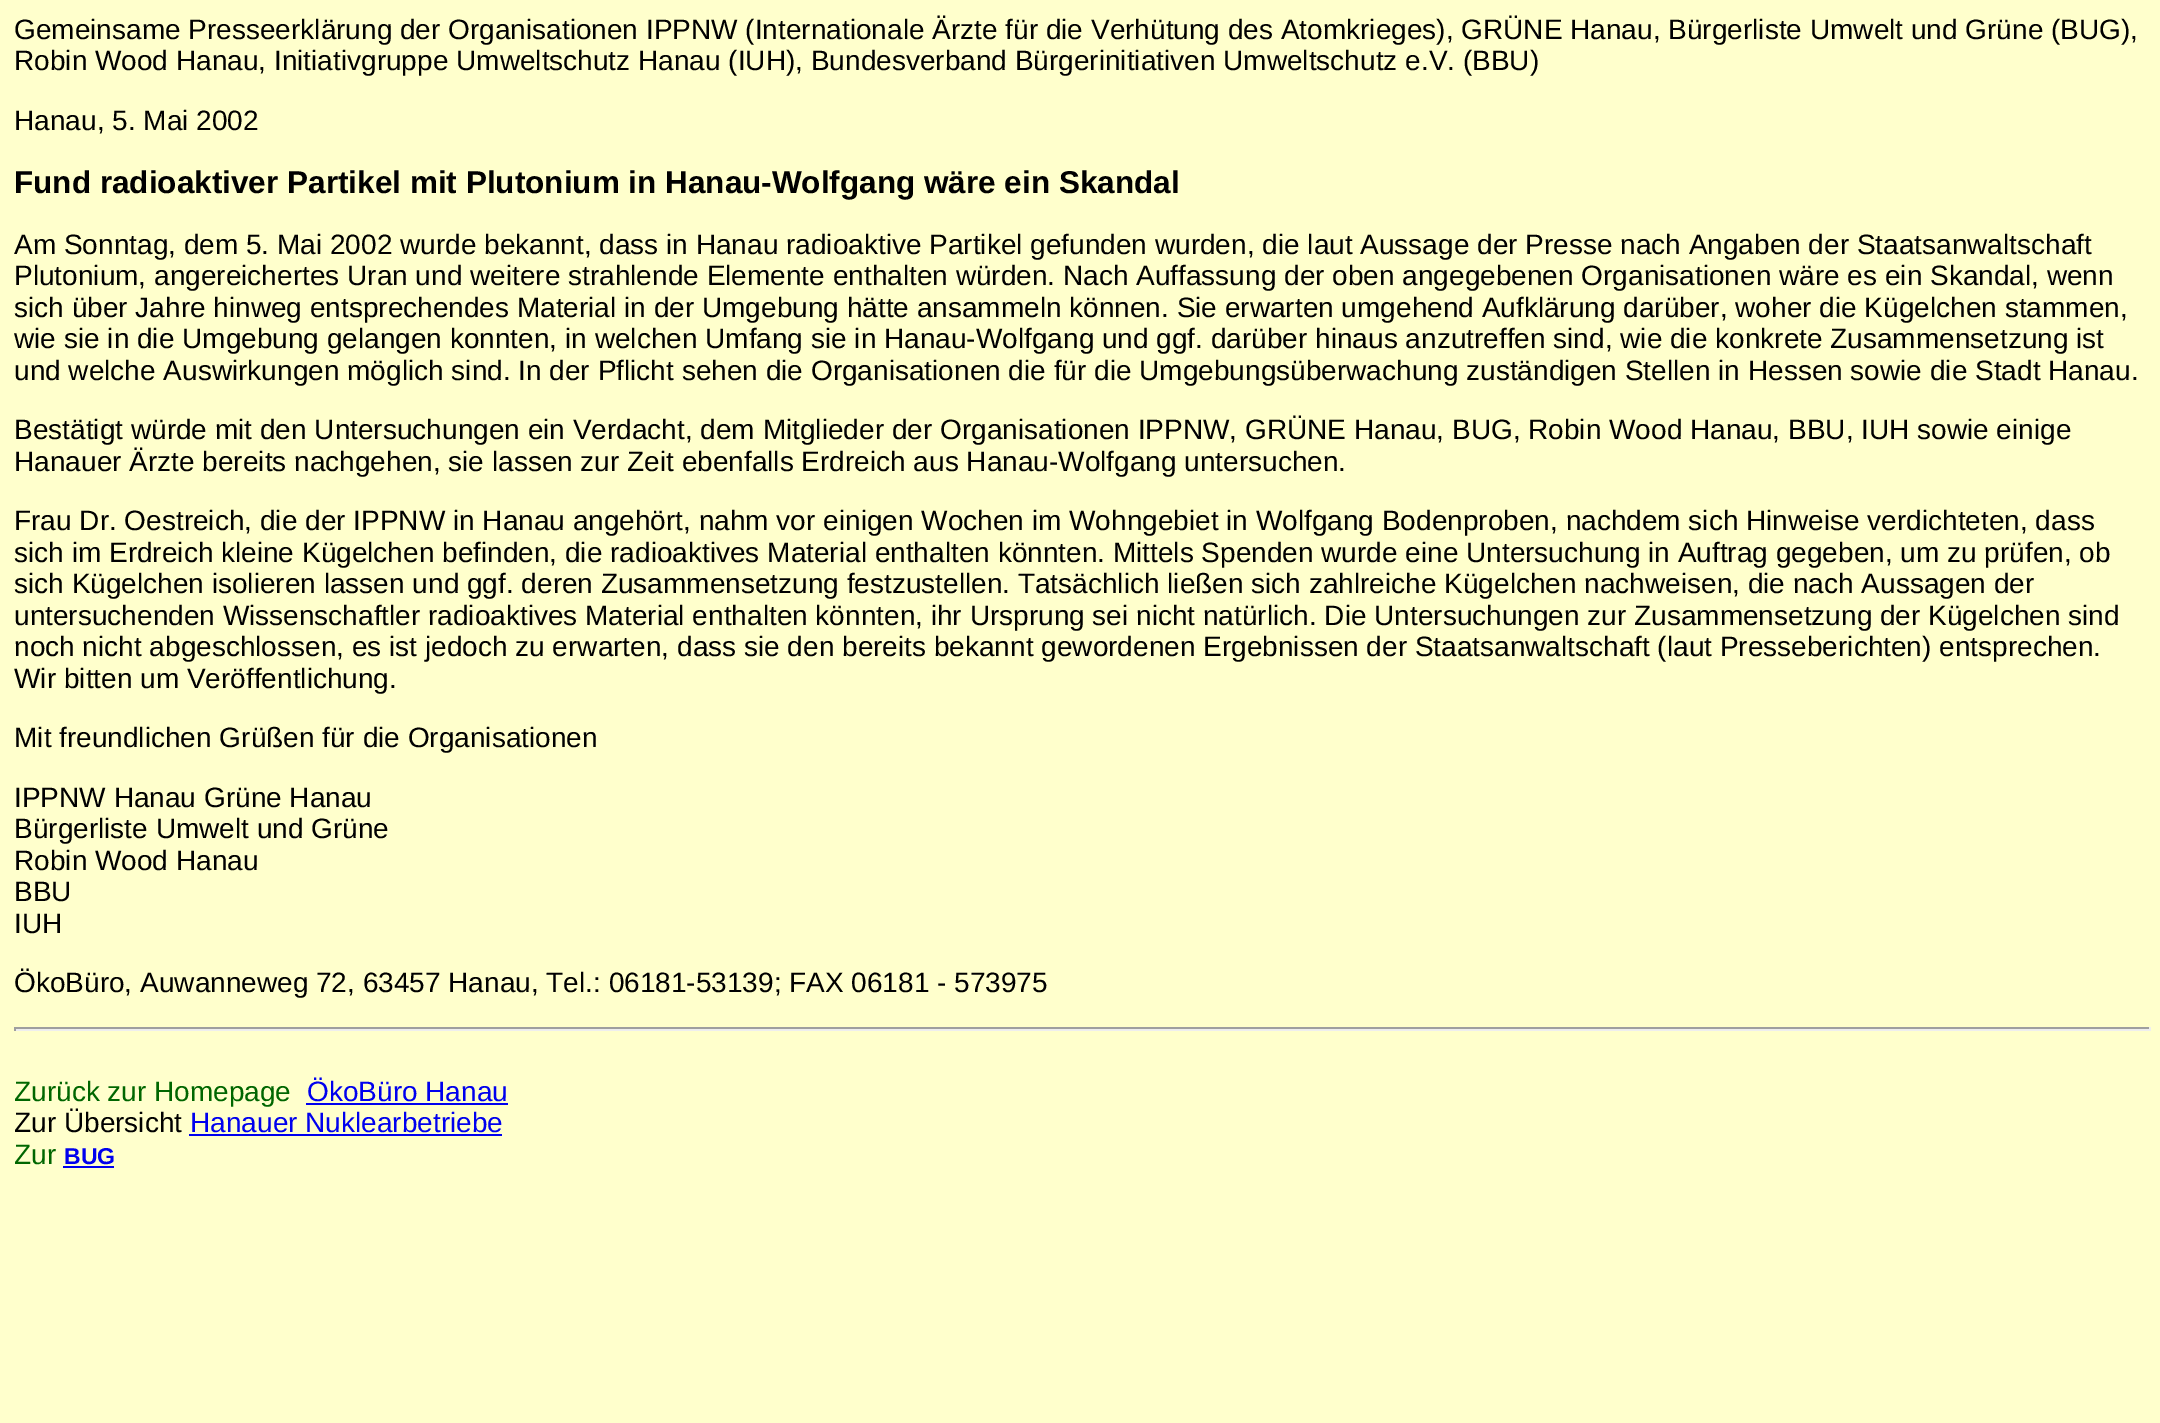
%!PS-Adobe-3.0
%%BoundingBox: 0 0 2160 1423
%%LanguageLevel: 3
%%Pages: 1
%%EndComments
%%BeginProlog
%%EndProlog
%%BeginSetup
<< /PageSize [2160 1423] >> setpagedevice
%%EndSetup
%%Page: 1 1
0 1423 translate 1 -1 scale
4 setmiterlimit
1 1 0.8 setrgbcolor
0 0 2160 1423 rectfill
0.624 setgray
14 1027 2137 2 rectfill
0.933 setgray
2149 1027 2 4 rectfill
14 1029 2137 2 rectfill
0.624 setgray
14 1027 2 4 rectfill
0 0 0.933 setrgbcolor
306 1103 202 2 rectfill
189 1134 313 2 rectfill
63 1166 51 2 rectfill
/LiberationSans-Regular [28 0 0 -28 0 0] selectfont
0 setgray
14 39 moveto (Gemeinsame Presseerklärung der Organisationen IPPNW \(Internationale Ärzte für die Verhütung des Atomkrieges\), GRÜNE Hanau, Bürgerliste Umwelt und Grüne \(BUG\),) show
14 70 moveto (Robin Wood Hanau, Initiativgruppe Umweltschutz Hanau \(IUH\), Bundesverband Bürgerinitiativen Umweltschutz e.V. \(BBU\)) show
14 130 moveto (Hanau, 5. Mai 2002) show
/LiberationSans-Bold [31.5 0 0 -31.5 0 0] selectfont
14 193 moveto (Fund radioaktiver Partikel mit Plutonium in Hanau-Wolfgang wäre ein Skandal) show
/LiberationSans-Regular [28 0 0 -28 0 0] selectfont
14 254 moveto (Am Sonntag, dem 5. Mai 2002 wurde bekannt, dass in Hanau radioaktive Partikel gefunden wurden, die laut Aussage der Presse nach Angaben der Staatsanwaltschaft) show
14 285 moveto (Plutonium, angereichertes Uran und weitere strahlende Elemente enthalten würden. Nach Auffassung der oben angegebenen Organisationen wäre es ein Skandal, wenn) show
14 317 moveto (sich über Jahre hinweg entsprechendes Material in der Umgebung hätte ansammeln können. Sie erwarten umgehend Aufklärung darüber, woher die Kügelchen stammen,) show
14 348 moveto (wie sie in die Umgebung gelangen konnten, in welchen Umfang sie in Hanau-Wolfgang und ggf. darüber hinaus anzutreffen sind, wie die konkrete Zusammensetzung ist) show
14 380 moveto (und welche Auswirkungen möglich sind. In der Pflicht sehen die Organisationen die für die Umgebungsüberwachung zuständigen Stellen in Hessen sowie die Stadt Hanau.) show
14 439 moveto (Bestätigt würde mit den Untersuchungen ein Verdacht, dem Mitglieder der Organisationen IPPNW, GRÜNE Hanau, BUG, Robin Wood Hanau, BBU, IUH sowie einige) show
14 471 moveto (Hanauer Ärzte bereits nachgehen, sie lassen zur Zeit ebenfalls Erdreich aus Hanau-Wolfgang untersuchen.) show
14 530 moveto (Frau Dr. Oestreich, die der IPPNW in Hanau angehört, nahm vor einigen Wochen im Wohngebiet in Wolfgang Bodenproben, nachdem sich Hinweise verdichteten, dass) show
14 562 moveto (sich im Erdreich kleine Kügelchen befinden, die radioaktives Material enthalten könnten. Mittels Spenden wurde eine Untersuchung in Auftrag gegeben, um zu prüfen, ob) show
14 593 moveto (sich Kügelchen isolieren lassen und ggf. deren Zusammensetzung festzustellen. Tatsächlich ließen sich zahlreiche Kügelchen nachweisen, die nach Aussagen der) show
14 625 moveto (untersuchenden Wissenschaftler radioaktives Material enthalten könnten, ihr Ursprung sei nicht natürlich. Die Untersuchungen zur Zusammensetzung der Kügelchen sind) show
14 656 moveto (noch nicht abgeschlossen, es ist jedoch zu erwarten, dass sie den bereits bekannt gewordenen Ergebnissen der Staatsanwaltschaft \(laut Presseberichten\) entsprechen.) show
14 688 moveto (Wir bitten um Veröffentlichung.) show
14 747 moveto (Mit freundlichen Grüßen für die Organisationen) show
14 807 moveto (IPPNW Hanau Grüne Hanau) show
14 838 moveto (Bürgerliste Umwelt und Grüne) show
14 870 moveto (Robin Wood Hanau) show
14 901 moveto (BBU) show
14 933 moveto (IUH) show
14 992 moveto (ÖkoBüro, Auwanneweg 72, 63457 Hanau, Tel.: 06181-53139; FAX 06181 - 573975) show
0 0.4 0 setrgbcolor
14 1101 moveto (Zurück zur Homepage) show
0 0 0.933 setrgbcolor
307 1101 moveto (ÖkoBüro Hanau) show
0 setgray
14 1132 moveto (Zur Übersicht) show
0 0 0.933 setrgbcolor
190 1132 moveto (Hanauer Nuklearbetriebe) show
0 0.4 0 setrgbcolor
14 1164 moveto (Zur) show
/LiberationSans-Bold [23 0 0 -23 0 0] selectfont
0 0 0.933 setrgbcolor
64 1164 moveto (BUG) show
showpage
%%EOF
